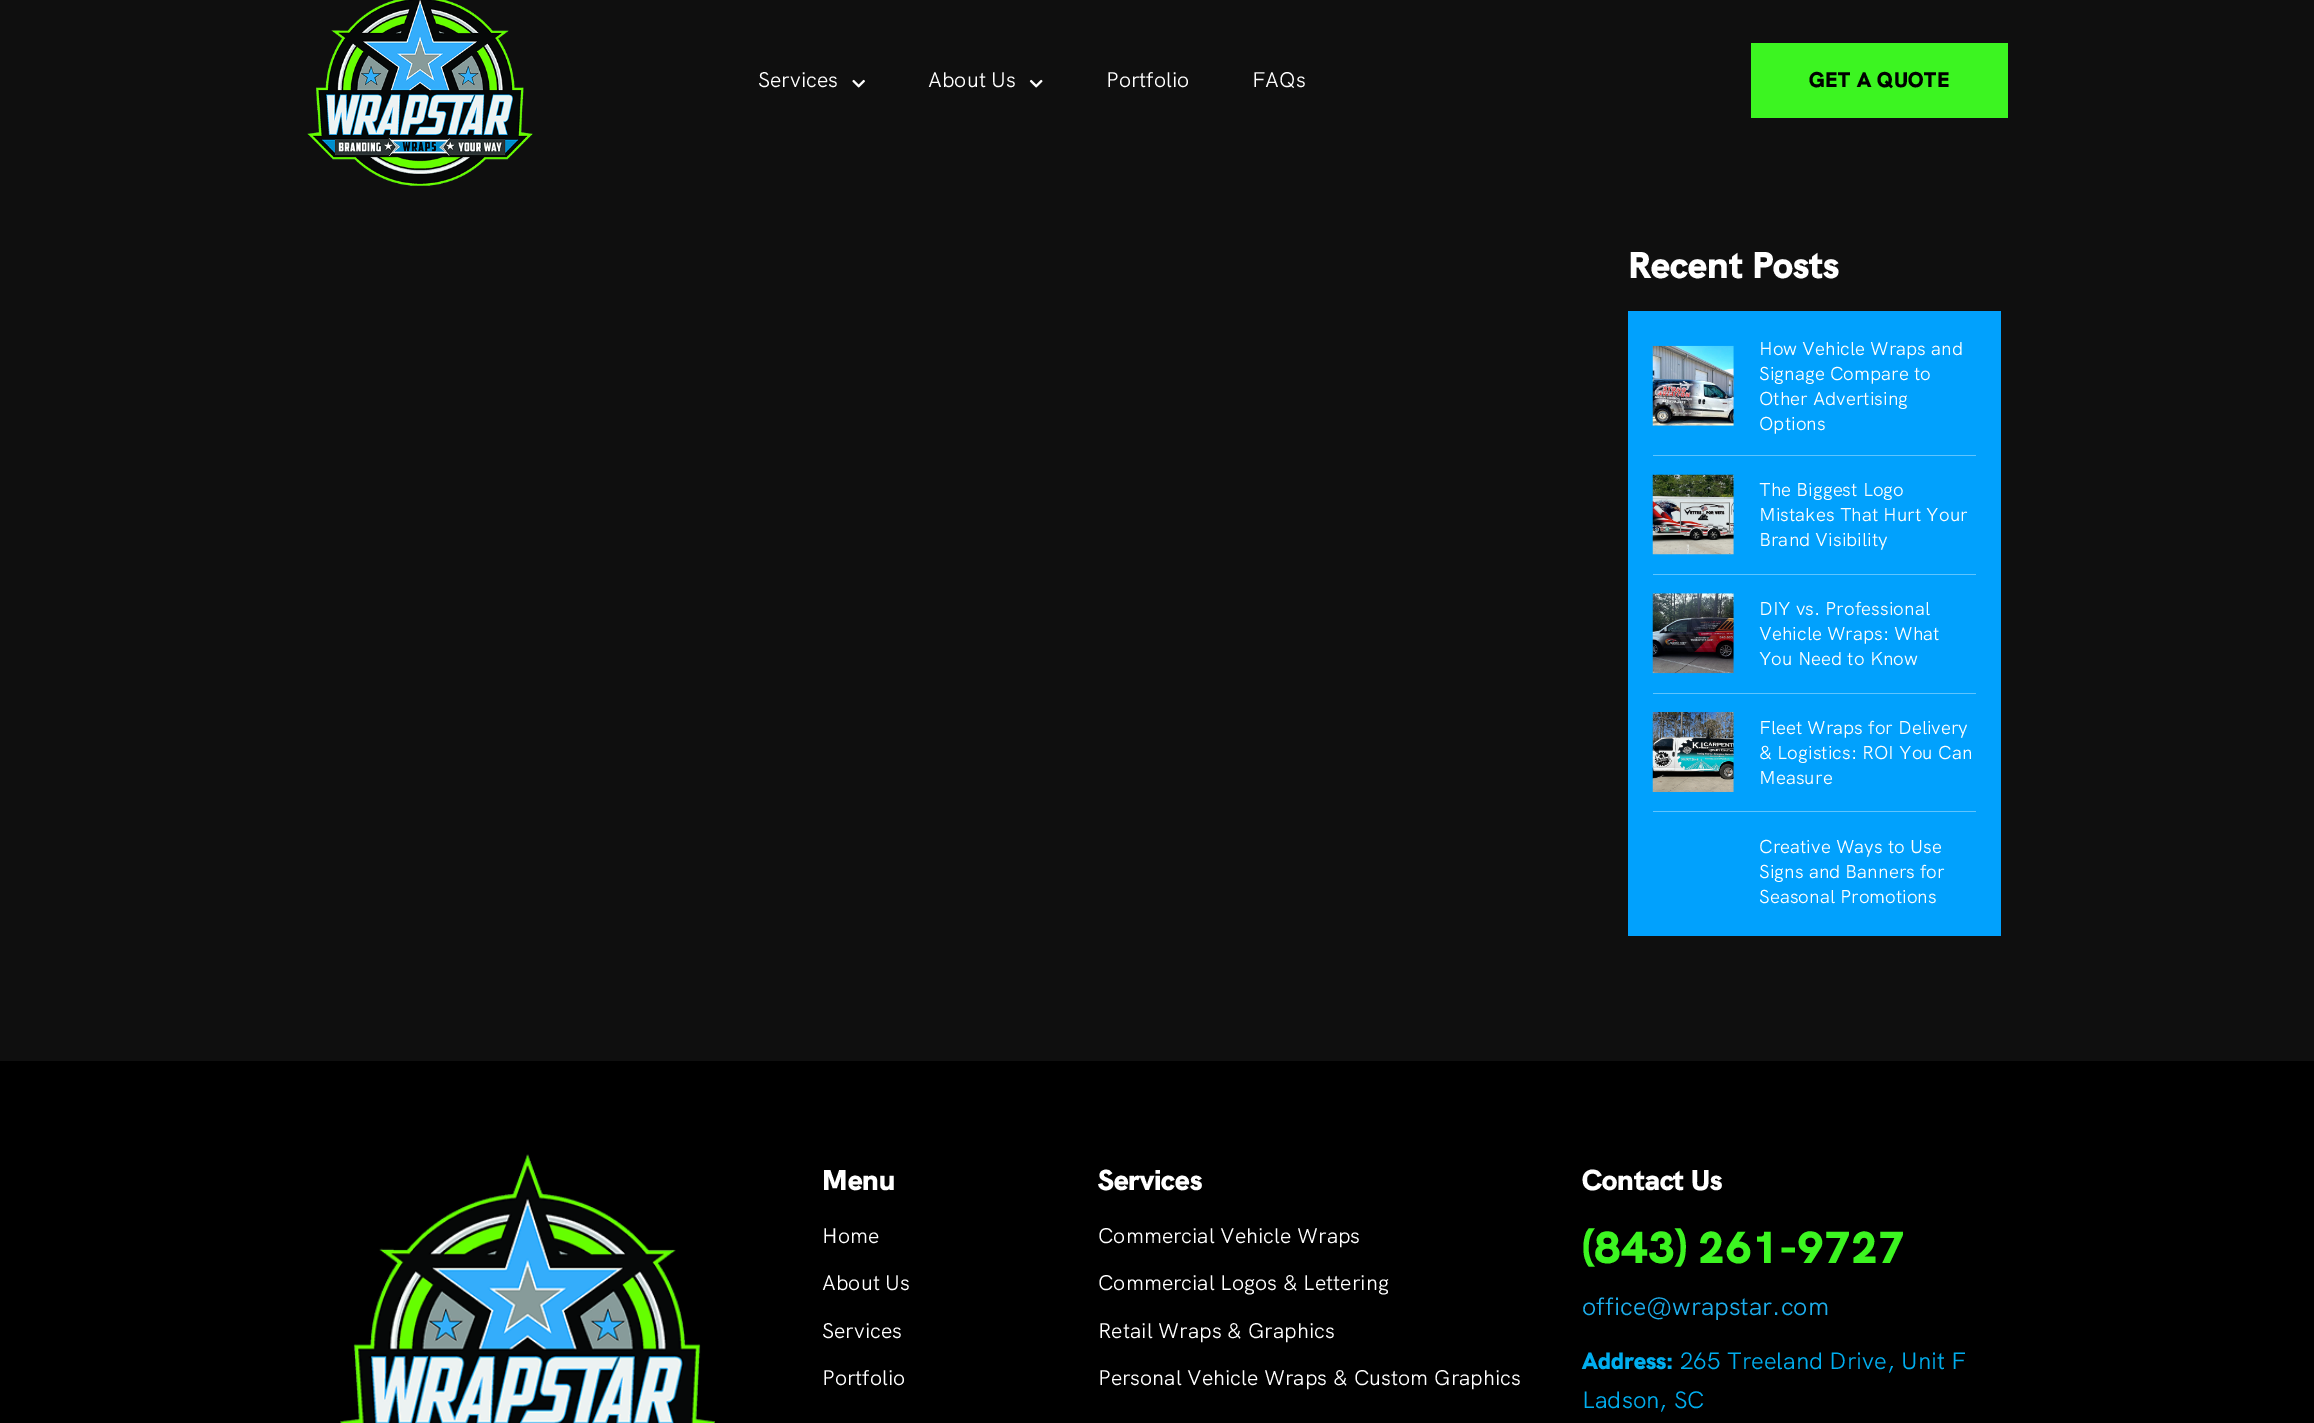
%!PS-Adobe-3.0
%%BoundingBox: 0 0 2314 1423
%%LanguageLevel: 3
%%Pages: 1
%%EndComments
%%BeginProlog
/drawimage { 5 dict begin { /h /w /y /x /name } { exch def } forall
  gsave x y translate w h scale
  w h 8 [w 0 0 h 0 0] name (r) file false 3 colorimage grestore end } def
%%EndProlog
%%BeginSetup
<< /PageSize [2314 1423] >> setpagedevice
%%EndSetup
%%Page: 1 1
0 1423 translate 1 -1 scale
4 setmiterlimit
0.059 setgray
0 0 2314 1423 rectfill
(images/1.raw) 307 0 226 186 drawimage
(images/2.raw) 852 79 13 9 drawimage
(images/3.raw) 1029 79 14 9 drawimage
0.235 0.961 0.129 setrgbcolor
1751 43 257 75 rectfill
0.004 0.631 0.992 setrgbcolor
1628 311 373 625 rectfill
0.373 0.769 0.996 setrgbcolor
1653 455 323 1 rectfill
(images/4.raw) 1652 345 82 81 drawimage
1653 574 323 1 rectfill
(images/5.raw) 1652 474 82 81 drawimage
1653 693 323 1 rectfill
(images/6.raw) 1652 593 82 81 drawimage
1653 811 323 1 rectfill
(images/7.raw) 1652 712 82 80 drawimage
0 setgray
0 1061 2314 362 rectfill
(images/8.raw) 340 1154 375 269 drawimage
/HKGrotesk-Regular [21.25 0 0 -21.25 0 0] selectfont
1 setgray
758 87 moveto (Services) show
928 87 moveto (About Us) show
1106 87 moveto (Portfolio) show
1252 87 moveto (FAQs) show
/HKGrotesk-Black [21.25 0 0 -21.25 0 0] selectfont
0 setgray
1809 87 moveto 0.6 0 (GET A QUOTE) ashow
/HKGrotesk-Black [37.5 0 0 -37.5 0 0] selectfont
1 setgray
1628 278 moveto (Recent Posts) show
/HKGrotesk-Regular [18.75 0 0 -18.75 0 0] selectfont
1759 355 moveto (How Vehicle Wraps and) show
1759 380 moveto (Signage Compare to) show
1759 405 moveto (Other Advertising) show
1759 430 moveto (Options) show
1759 496 moveto (The Biggest Logo) show
1759 521 moveto (Mistakes That Hurt Your) show
1759 546 moveto (Brand Visibility) show
1759 615 moveto (DIY vs. Professional) show
1759 640 moveto (Vehicle Wraps: What) show
1759 665 moveto (You Need to Know) show
1759 734 moveto (Fleet Wraps for Delivery) show
1759 759 moveto (& Logistics: ROI You Can) show
1759 784 moveto (Measure) show
1759 853 moveto (Creative Ways to Use) show
1759 878 moveto (Signs and Banners for) show
1759 903 moveto (Seasonal Promotions) show
/HKGrotesk-Black [28.75 0 0 -28.75 0 0] selectfont
822 1190 moveto (Menu) show
/HKGrotesk-Regular [21.25 0 0 -21.25 0 0] selectfont
822 1243 moveto (Home) show
822 1290 moveto (About Us) show
822 1338 moveto (Services) show
822 1385 moveto (Portfolio) show
/HKGrotesk-Black [28.75 0 0 -28.75 0 0] selectfont
1098 1190 moveto (Services) show
/HKGrotesk-Regular [21.25 0 0 -21.25 0 0] selectfont
1098 1243 moveto (Commercial Vehicle Wraps) show
1098 1290 moveto (Commercial Logos & Lettering) show
1098 1338 moveto (Retail Wraps & Graphics) show
1098 1385 moveto (Personal Vehicle Wraps & Custom Graphics) show
/HKGrotesk-Black [28.75 0 0 -28.75 0 0] selectfont
1582 1190 moveto (Contact Us) show
/HKGrotesk-Black [45 0 0 -45 0 0] selectfont
0.235 0.961 0.129 setrgbcolor
1582 1263 moveto (\(843\) 261-9727) show
/HKGrotesk-Regular [25 0 0 -25 0 0] selectfont
0.114 0.678 0.922 setrgbcolor
1582 1315 moveto (office@wrapstar.com) show
/HKGrotesk-Black [23.75 0 0 -23.75 0 0] selectfont
0 0.682 0.937 setrgbcolor
1582 1369 moveto (Address:) show
/HKGrotesk-Regular [23.75 0 0 -23.75 0 0] selectfont
1680 1369 moveto (265 Treeland Drive, Unit F) show
1582 1408 moveto (Ladson, SC) show
showpage
%%EOF
